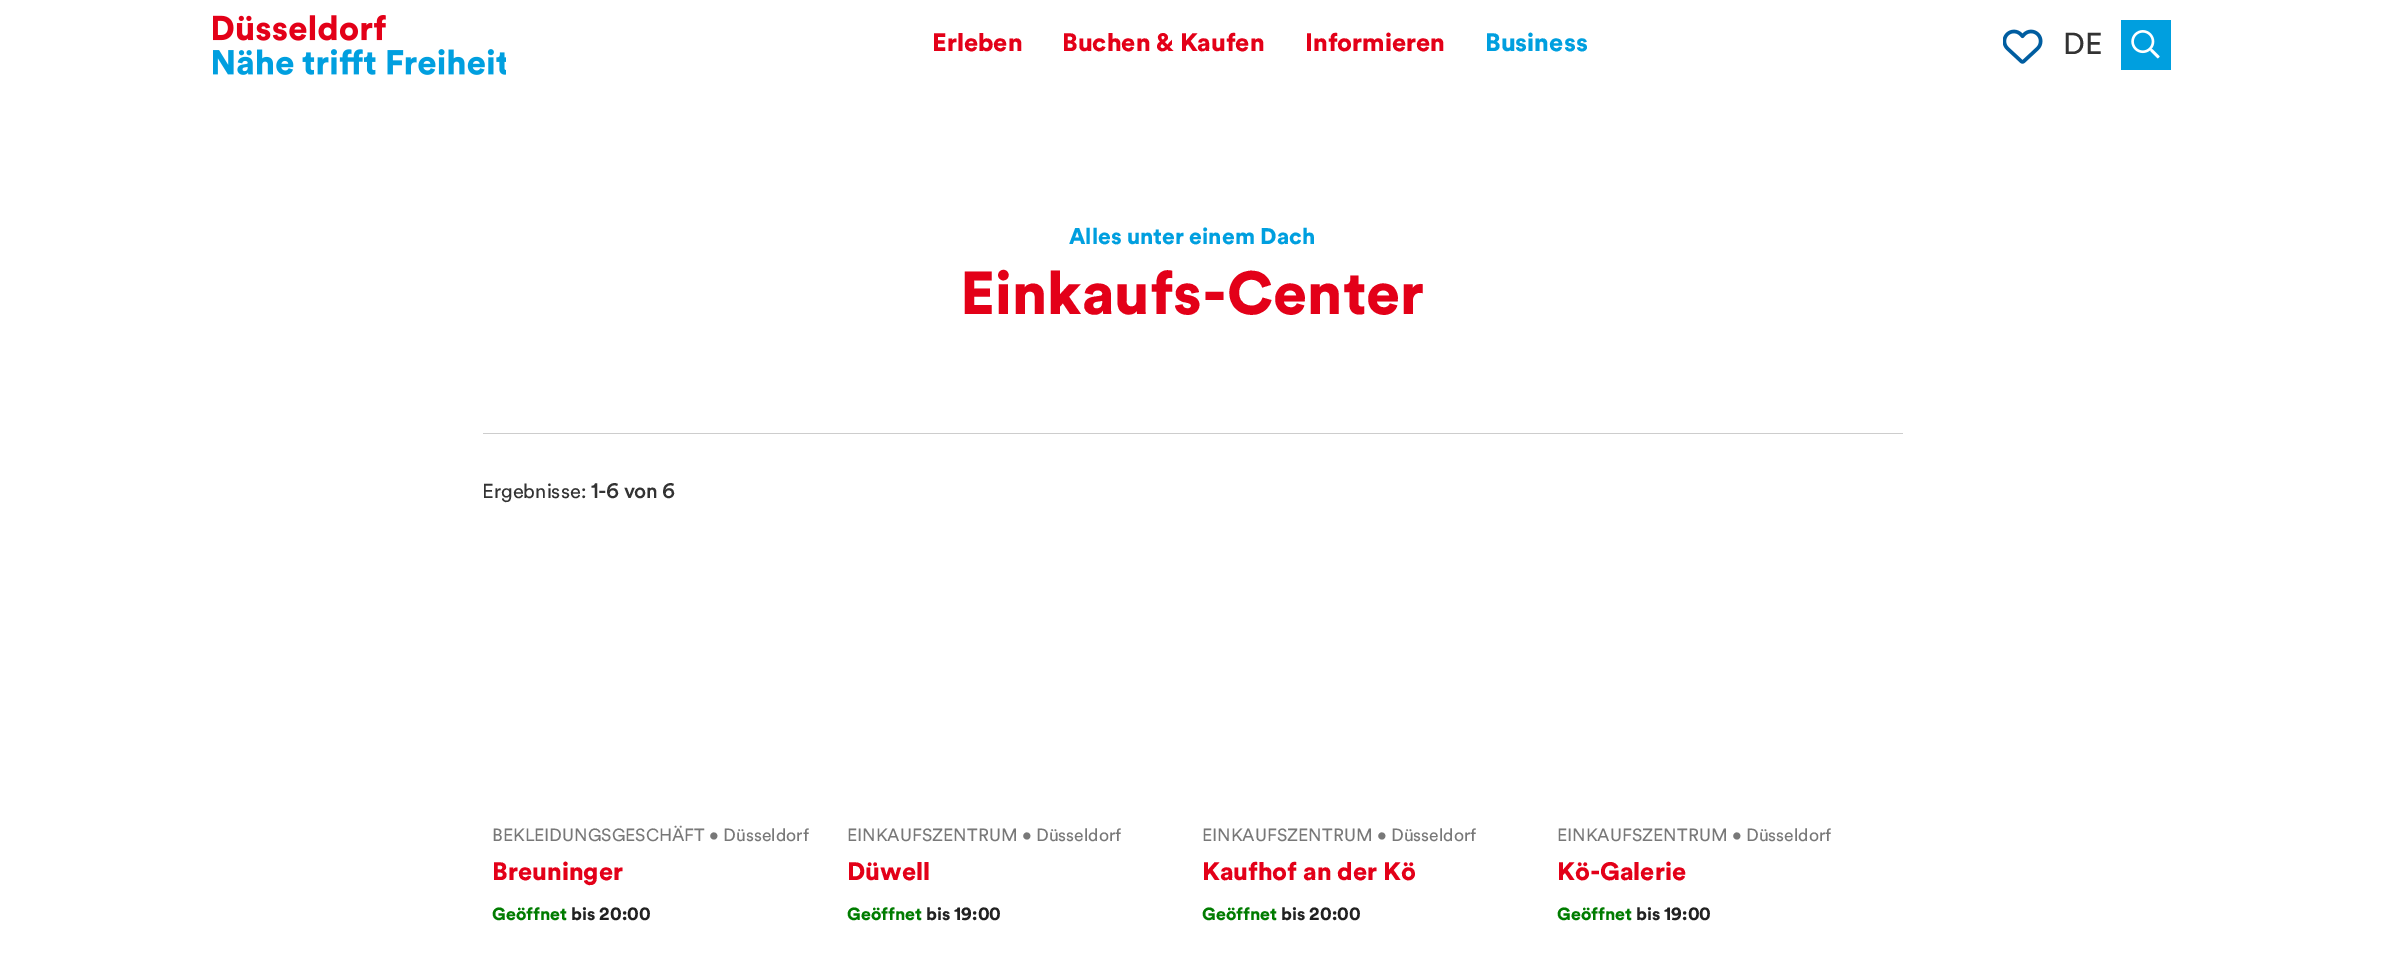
%!PS-Adobe-3.0
%%BoundingBox: 0 0 2383 969
%%LanguageLevel: 3
%%Pages: 1
%%EndComments
%%BeginProlog
/drawimage { 5 dict begin { /h /w /y /x /name } { exch def } forall
  gsave x y translate w h scale
  w h 8 [w 0 0 h 0 0] name (r) file false 3 colorimage grestore end } def
%%EndProlog
%%BeginSetup
<< /PageSize [2383 969] >> setpagedevice
%%EndSetup
%%Page: 1 1
0 969 translate 1 -1 scale
4 setmiterlimit
1 setgray
0 0 2383 969 rectfill
(images/1.raw) 213 15 293 60 drawimage
(images/2.raw) 2003 29 40 35 drawimage
0 0.624 0.875 setrgbcolor
2121 20 50 50 rectfill
(images/3.raw) 2131 30 29 29 drawimage
0.804 setgray
483 433 1420 1 rectfill
/Circular-Black [25 0 0 -25 0 0] selectfont
0.89 0 0.094 setrgbcolor
932 51 moveto (Erleben) show
1062 51 moveto (Buchen & Kaufen) show
1305 51 moveto (Informieren) show
0 0.624 0.875 setrgbcolor
1485 51 moveto (Business) show
/Circular-Regular [30 0 0 -30 0 0] selectfont
0.2 setgray
2063 54 moveto (DE) show
/Circular-Black [22.5 0 0 -22.5 0 0] selectfont
0 0.624 0.875 setrgbcolor
1069 244 moveto (Alles unter einem Dach) show
/Circular-Black [60 0 0 -60 0 0] selectfont
0.89 0 0.094 setrgbcolor
960 314 moveto (Einkaufs-Center) show
/Circular-Regular [20 0 0 -20 0 0] selectfont
0.2 setgray
482 498 moveto (Ergebnisse:) show
/Circular-Bold [20 0 0 -20 0 0] selectfont
591 498 moveto (1-6 von 6) show
/Circular-Regular [17.5 0 0 -17.5 0 0] selectfont
0.471 setgray
492 841 moveto (BEKLEIDUNGSGESCHÄFT • Düsseldorf) show
/Circular-Black [25 0 0 -25 0 0] selectfont
0.89 0 0.094 setrgbcolor
492 880 moveto (Breuninger) show
/Circular-Black [17.5 0 0 -17.5 0 0] selectfont
0 0.486 0 setrgbcolor
492 920 moveto (Geöffnet) show
0.129 setgray
571 920 moveto (bis 20:00) show
/Circular-Regular [17.5 0 0 -17.5 0 0] selectfont
0.471 setgray
847 841 moveto (EINKAUFSZENTRUM • Düsseldorf) show
/Circular-Black [25 0 0 -25 0 0] selectfont
0.89 0 0.094 setrgbcolor
847 880 moveto (Düwell) show
/Circular-Black [17.5 0 0 -17.5 0 0] selectfont
0 0.486 0 setrgbcolor
847 920 moveto (Geöffnet) show
0.129 setgray
926 920 moveto (bis 19:00) show
/Circular-Regular [17.5 0 0 -17.5 0 0] selectfont
0.471 setgray
1202 841 moveto (EINKAUFSZENTRUM • Düsseldorf) show
/Circular-Black [25 0 0 -25 0 0] selectfont
0.89 0 0.094 setrgbcolor
1202 880 moveto (Kaufhof an der Kö) show
/Circular-Black [17.5 0 0 -17.5 0 0] selectfont
0 0.486 0 setrgbcolor
1202 920 moveto (Geöffnet) show
0.129 setgray
1281 920 moveto (bis 20:00) show
/Circular-Regular [17.5 0 0 -17.5 0 0] selectfont
0.471 setgray
1557 841 moveto (EINKAUFSZENTRUM • Düsseldorf) show
/Circular-Black [25 0 0 -25 0 0] selectfont
0.89 0 0.094 setrgbcolor
1557 880 moveto (Kö-Galerie) show
/Circular-Black [17.5 0 0 -17.5 0 0] selectfont
0 0.486 0 setrgbcolor
1557 920 moveto (Geöffnet) show
0.129 setgray
1636 920 moveto (bis 19:00) show
showpage
%%EOF
